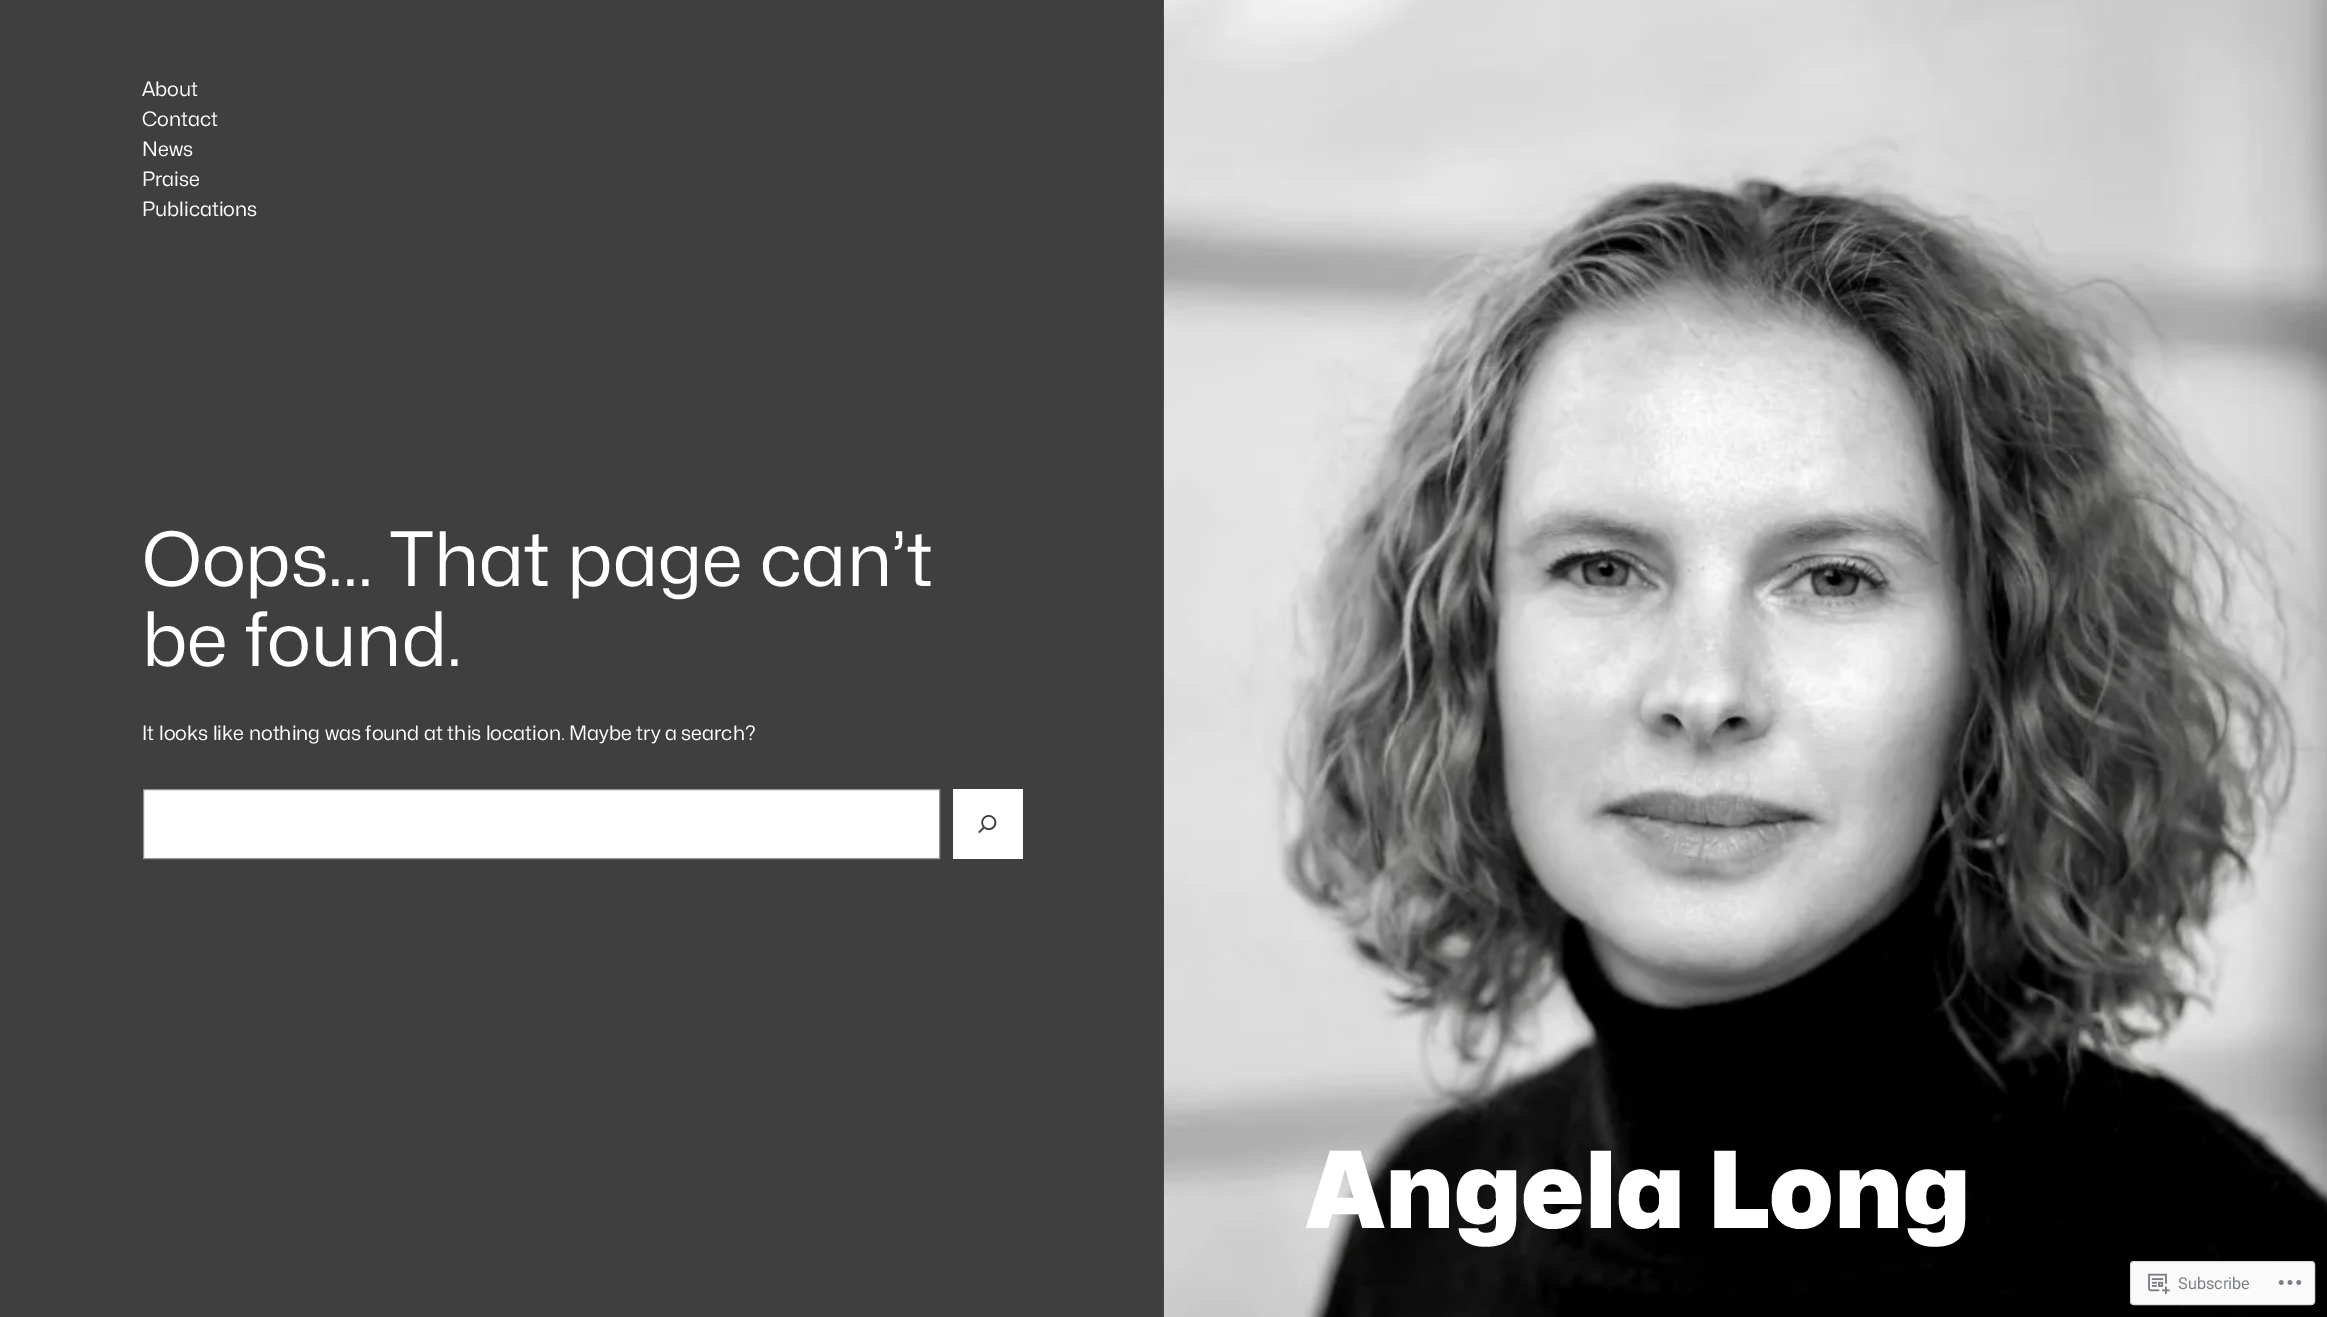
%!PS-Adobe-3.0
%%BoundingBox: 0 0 2327 1317
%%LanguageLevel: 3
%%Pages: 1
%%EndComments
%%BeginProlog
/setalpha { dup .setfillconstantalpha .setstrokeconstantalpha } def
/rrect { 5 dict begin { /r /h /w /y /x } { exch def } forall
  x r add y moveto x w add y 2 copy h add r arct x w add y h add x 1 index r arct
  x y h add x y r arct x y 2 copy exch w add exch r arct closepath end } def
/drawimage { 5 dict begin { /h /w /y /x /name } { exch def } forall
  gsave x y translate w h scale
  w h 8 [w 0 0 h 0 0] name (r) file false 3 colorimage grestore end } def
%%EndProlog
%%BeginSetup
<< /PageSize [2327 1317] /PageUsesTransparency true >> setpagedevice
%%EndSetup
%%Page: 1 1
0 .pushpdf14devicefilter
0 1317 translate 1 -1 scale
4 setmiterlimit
0.247 setgray
0 0 2327 1317 rectfill
1 setgray
newpath 143.5 789.5 moveto 939.5 789.5 lineto 939.5 858.5 lineto 143.5 858.5 lineto closepath gsave fill grestore
0.58 setgray
stroke
1 setgray
953 789 70 70 rectfill
(images/1.raw) 978 815 19 19 drawimage
(images/2.raw) 1163 0 1164 1317 drawimage
0.98 setalpha
2130 1261 185 44 4 rrect fill
0.863 0.863 0.871 setrgbcolor
2130.5 1261.5 184 43 3.5 rrect stroke
1 setalpha
(images/3.raw) 2148 1273 22 22 drawimage
(images/4.raw) 2278 1280 24 5 drawimage
/MonaSans-Regular [20 0 0 -20 0 0] selectfont
1 setgray
142 96 moveto (About) show
142 126 moveto (Contact) show
142 156 moveto (News) show
142 186 moveto (Praise) show
142 216 moveto (Publications) show
/MonaSans-Regular [75 0 0 -75 0 0] selectfont
142 586 moveto (Oops… That page can’t) show
142 666 moveto (be found.) show
/MonaSans-Regular [20 0 0 -20 0 0] selectfont
142 740 moveto (It looks like nothing was found at this location. Maybe try a search?) show
/MonaSans-Black [106.25 0 0 -106.25 0 0] selectfont
1306 1228 moveto (Angela Long) show
/Roboto-Regular [16.25 0 0 -16.25 0 0] selectfont
0.482 0.498 0.518 setrgbcolor
2178 1289 moveto (Subscribe) show
.poppdf14devicefilter showpage
%%EOF
